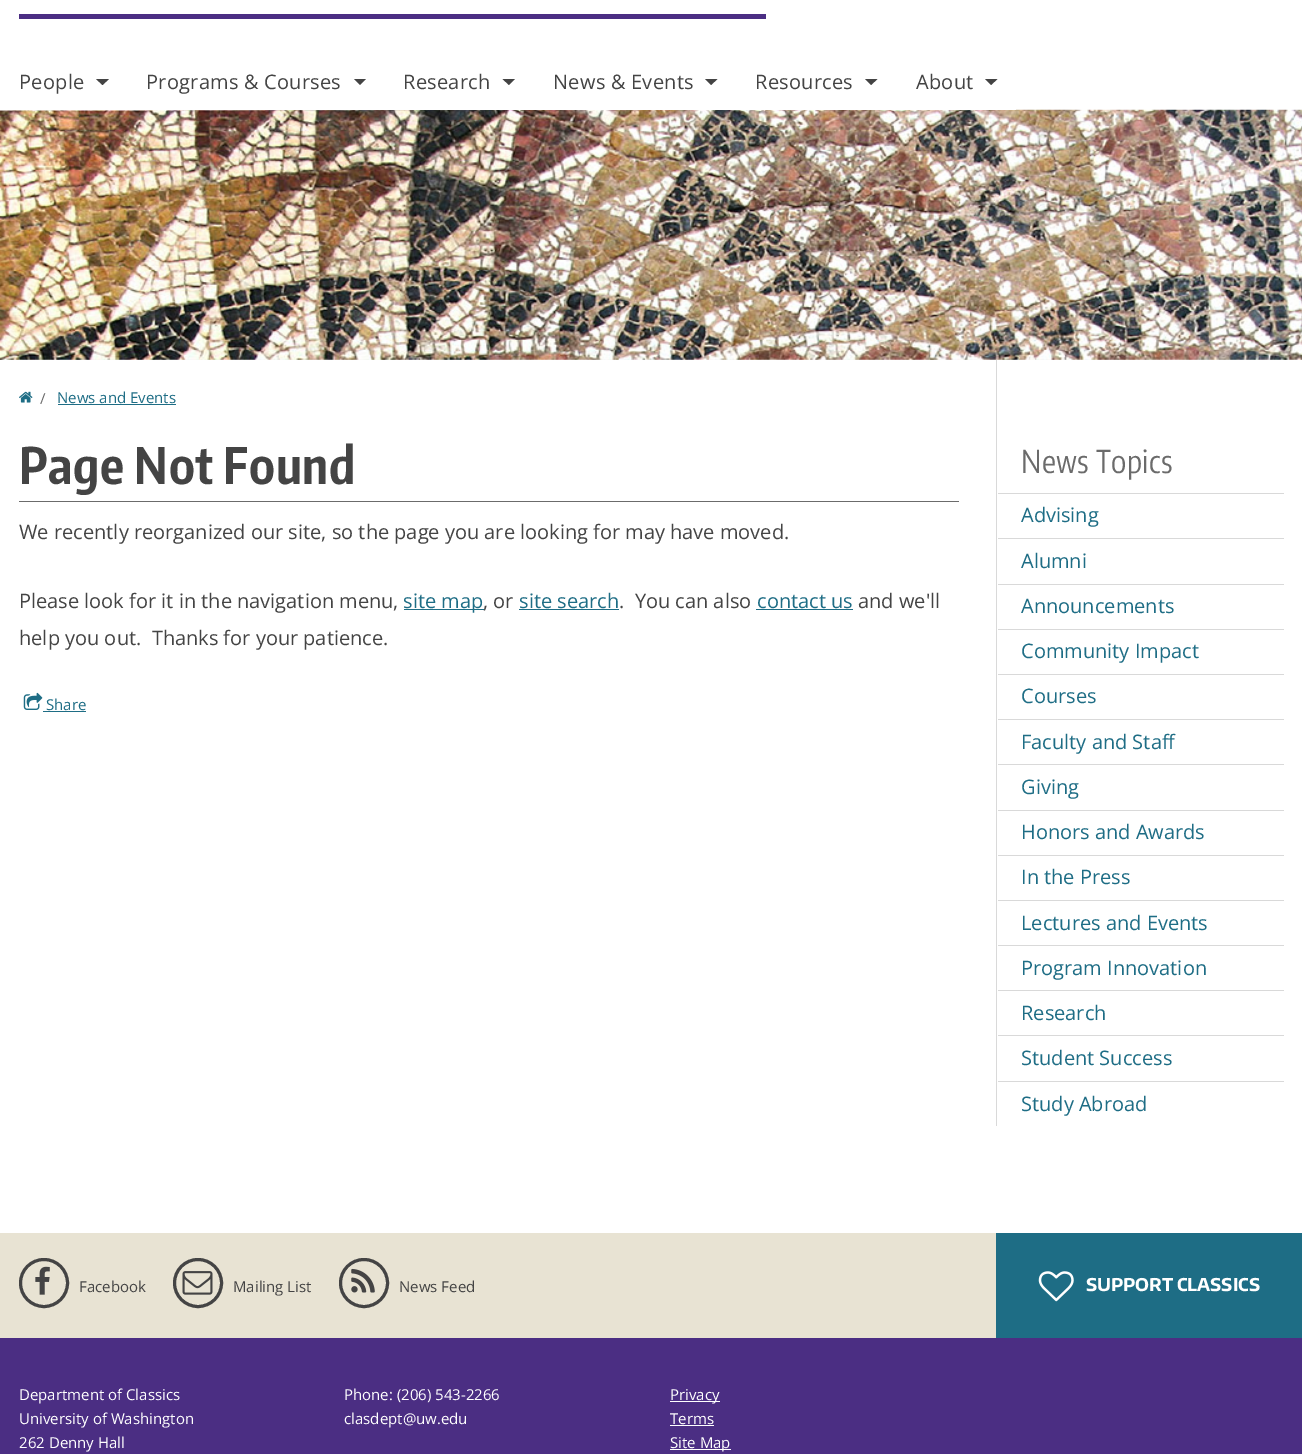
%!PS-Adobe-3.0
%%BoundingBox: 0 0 1302 1454
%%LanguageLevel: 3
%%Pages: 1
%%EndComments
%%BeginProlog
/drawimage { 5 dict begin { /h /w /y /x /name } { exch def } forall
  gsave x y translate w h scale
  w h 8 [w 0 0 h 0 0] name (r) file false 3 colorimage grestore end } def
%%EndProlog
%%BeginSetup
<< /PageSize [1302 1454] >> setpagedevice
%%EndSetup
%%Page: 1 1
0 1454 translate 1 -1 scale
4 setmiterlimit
1 setgray
0 0 1302 1454 rectfill
0.294 0.18 0.514 setrgbcolor
19 14 747 5 rectfill
(images/1.raw) 0 109 1302 251 drawimage
1 setgray
0 109 1016 1 rectfill
0.267 setgray
newpath 96 79 moveto 109 79 lineto 102.5 85 lineto closepath fill
newpath 354 79 moveto 366 79 lineto 360 85 lineto closepath fill
newpath 502.5 79 moveto 515 79 lineto 509 85 lineto closepath fill
newpath 705 79 moveto 717.5 79 lineto 711 85 lineto closepath fill
newpath 865 79 moveto 877.5 79 lineto 871 85 lineto closepath fill
newpath 985 79 moveto 997.5 79 lineto 991 85 lineto closepath fill
(images/2.raw) 19 391 14 12 drawimage
0.118 0.427 0.522 setrgbcolor
58 404 118 1 rectfill
0.42 setgray
19 501 940 1 rectfill
0.118 0.427 0.522 setrgbcolor
404 609 80 1 rectfill
519 609 100 1 rectfill
756 609 97 1 rectfill
(images/3.raw) 23 692 20 18 drawimage
43 711 43 1 rectfill
0.851 setgray
996 360 1 766 rectfill
998 493 286 1 rectfill
998 538 286 1 rectfill
998 584 286 1 rectfill
998 629 286 1 rectfill
998 674 286 1 rectfill
998 719 286 1 rectfill
998 764 286 1 rectfill
998 810 286 1 rectfill
998 855 286 1 rectfill
998 900 286 1 rectfill
998 945 286 1 rectfill
998 990 286 1 rectfill
998 1035 286 1 rectfill
998 1081 286 1 rectfill
0.91 0.89 0.827 setrgbcolor
0 1233 996 105 rectfill
0.267 setgray
3 setlinewidth
newpath 44 1283 23.5 0 360 arc closepath stroke
(images/4.raw) 35 1266 15 29 drawimage
newpath 198 1283 23.5 0 360 arc closepath stroke
(images/5.raw) 182 1271 31 24 drawimage
newpath 364 1283 23.5 0 360 arc closepath stroke
(images/6.raw) 351 1268 24 25 drawimage
0.118 0.427 0.522 setrgbcolor
996 1233 306 105 rectfill
(images/7.raw) 1038 1271 36 31 drawimage
0.294 0.18 0.514 setrgbcolor
0 1338 1302 116 rectfill
1 setgray
670 1401 50 1 rectfill
670 1425 44 1 rectfill
670 1449 61 1 rectfill
/OpenSans-Regular [20 0 0 -20 0 0] selectfont
0.267 setgray
19 89 moveto 0.25 0 (People) ashow
146 89 moveto 0.25 0 (Programs & Courses) ashow
403 89 moveto 0.25 0 (Research) ashow
553 89 moveto 0.25 0 (News & Events) ashow
755 89 moveto 0.25 0 (Resources) ashow
916 89 moveto 0.25 0 (About) ashow
/OpenSans-Regular [15 0 0 -15 0 0] selectfont
0.42 setgray
40 404 moveto (/) show
0.118 0.427 0.522 setrgbcolor
57 403 moveto (News and Events) show
/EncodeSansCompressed-Bold [50 0 0 -50 0 0] selectfont
0.267 setgray
19 484 moveto 0.6 0 (Page Not Found) ashow
/OpenSans-Regular [20 0 0 -20 0 0] selectfont
19 539 moveto (We recently reorganized our site, so the page you are looking for may have moved.) show
19 608 moveto (Please look for it in the navigation menu,) show
0.118 0.427 0.522 setrgbcolor
403 608 moveto (site map) show
0.267 setgray
483 608 moveto (, or) show
0.118 0.427 0.522 setrgbcolor
519 608 moveto (site search) show
0.267 setgray
619 608 moveto (.  You can also) show
0.118 0.427 0.522 setrgbcolor
757 608 moveto (contact us) show
0.267 setgray
858 608 moveto (and we'll) show
19 645 moveto (help you out.  Thanks for your patience.) show
/OpenSans-Regular [15 0 0 -15 0 0] selectfont
0.118 0.427 0.522 setrgbcolor
46 710 moveto (Share) show
/EncodeSansCompressed-Regular [31.25 0 0 -31.25 0 0] selectfont
0.42 setgray
1021 473 moveto 0.4 0 (News Topics) ashow
/OpenSans-Regular [20 0 0 -20 0 0] selectfont
0.118 0.427 0.522 setrgbcolor
1021 522 moveto (Advising) show
1021 568 moveto (Alumni) show
1021 613 moveto (Announcements) show
1021 658 moveto (Community Impact) show
1021 703 moveto (Courses) show
1021 749 moveto (Faculty and Staff) show
1021 794 moveto (Giving) show
1021 839 moveto (Honors and Awards) show
1021 884 moveto (In the Press) show
1021 930 moveto (Lectures and Events) show
1021 975 moveto (Program Innovation) show
1021 1020 moveto (Research) show
1021 1065 moveto (Student Success) show
1021 1111 moveto (Study Abroad) show
/OpenSans-Regular [15 0 0 -15 0 0] selectfont
0.267 setgray
79 1292 moveto (Facebook) show
233 1292 moveto (Mailing List) show
399 1292 moveto (News Feed) show
/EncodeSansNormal-Bold [17.5 0 0 -17.5 0 0] selectfont
1 setgray
1086 1291 moveto (SUPPORT CLASSICS) show
/OpenSans-Regular [15 0 0 -15 0 0] selectfont
19 1400 moveto (Department of Classics) show
19 1424 moveto (University of Washington) show
19 1448 moveto (262 Denny Hall) show
344 1400 moveto (Phone: \(206\) 543-2266) show
344 1424 moveto (clasdept@uw.edu) show
670 1400 moveto (Privacy) show
670 1424 moveto (Terms) show
670 1448 moveto (Site Map) show
showpage
%%EOF
